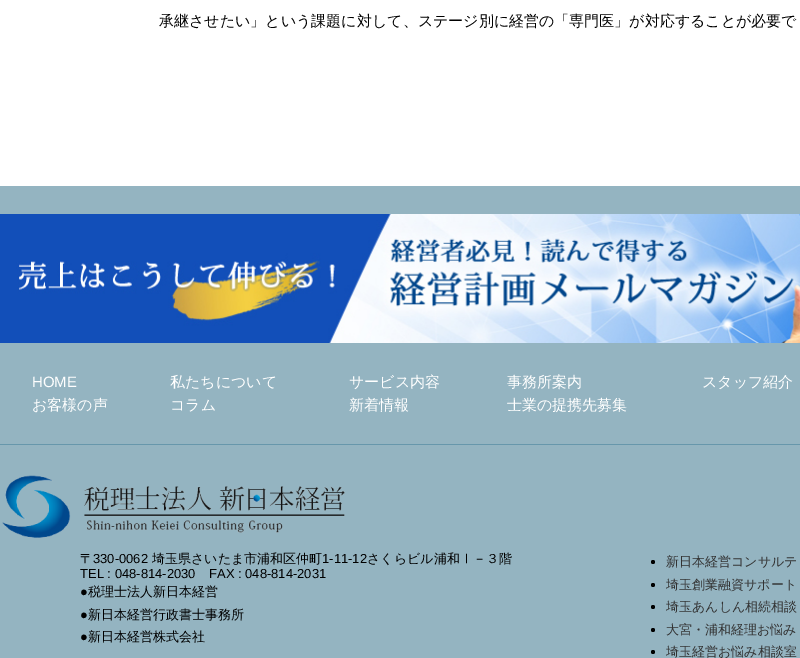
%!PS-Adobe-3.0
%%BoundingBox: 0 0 800 658
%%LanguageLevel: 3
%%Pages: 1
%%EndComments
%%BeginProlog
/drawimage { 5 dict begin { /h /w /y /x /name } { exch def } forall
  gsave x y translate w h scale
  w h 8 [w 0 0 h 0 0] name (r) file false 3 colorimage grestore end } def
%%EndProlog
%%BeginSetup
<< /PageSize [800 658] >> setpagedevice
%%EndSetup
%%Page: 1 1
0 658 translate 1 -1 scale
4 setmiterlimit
1 setgray
0 0 800 658 rectfill
0.58 0.706 0.757 setrgbcolor
0 186 800 472 rectfill
(images/1.raw) 0 214 800 129 drawimage
0.404 0.592 0.671 setrgbcolor
0 444 800 1 rectfill
(images/2.raw) 2 475 343 63 drawimage
0 setgray
newpath 653 562 2 0 360 arc closepath fill
newpath 653 585 2 0 360 arc closepath fill
newpath 653 607 2 0 360 arc closepath fill
newpath 653 630 2 0 360 arc closepath fill
newpath 653 652 2 0 360 arc closepath fill
/WenQuanYiZenHei-Medium [15 0 0 -15 0 0] selectfont
159 26 moveto (承継させたい」という課題に対して、ステージ別に経営の「専門医」が対応することが必要で) show
/LiberationSans-Regular [15 0 0 -15 0 0] selectfont
1 setgray
32 387 moveto (HOME) show
/WenQuanYiZenHei-Medium [15 0 0 -15 0 0] selectfont
32 410 moveto (お客様の声) show
170 387 moveto (私たちについて) show
170 410 moveto (コラム) show
349 387 moveto (サービス内容) show
349 410 moveto (新着情報) show
507 387 moveto (事務所案内) show
507 410 moveto (士業の提携先募集) show
702 387 moveto (スタッフ紹介) show
/WenQuanYiZenHei-Medium [13 0 0 -13 0 0] selectfont
0 setgray
80 563 moveto (〒) show
/LiberationSans-Regular [13 0 0 -13 0 0] selectfont
93 563 moveto (330-0062) show
/WenQuanYiZenHei-Medium [13 0 0 -13 0 0] selectfont
152 563 moveto (埼玉県さいたま市浦和区仲町) show
/LiberationSans-Regular [13 0 0 -13 0 0] selectfont
322 563 moveto (1-11-12) show
/WenQuanYiZenHei-Medium [13 0 0 -13 0 0] selectfont
367 563 moveto (さくらビル浦和Ⅰ－３階) show
/LiberationSans-Regular [13 0 0 -13 0 0] selectfont
80 578 moveto (TEL : 048-814-2030) show
209 578 moveto (FAX : 048-814-2031) show
80 596 moveto (●) show
/WenQuanYiZenHei-Medium [13 0 0 -13 0 0] selectfont
88 596 moveto (税理士法人新日本経営) show
/LiberationSans-Regular [13 0 0 -13 0 0] selectfont
80 619 moveto (●) show
/WenQuanYiZenHei-Medium [13 0 0 -13 0 0] selectfont
88 619 moveto (新日本経営行政書士事務所) show
/LiberationSans-Regular [13 0 0 -13 0 0] selectfont
80 641 moveto (●) show
/WenQuanYiZenHei-Medium [13 0 0 -13 0 0] selectfont
88 641 moveto (新日本経営株式会社) show
0.2 setgray
666 566 moveto (新日本経営コンサルテ) show
666 589 moveto (埼玉創業融資サポート) show
666 611 moveto (埼玉あんしん相続相談) show
666 634 moveto (大宮・浦和経理お悩み) show
666 656 moveto (埼玉経営お悩み相談室) show
showpage
%%EOF
